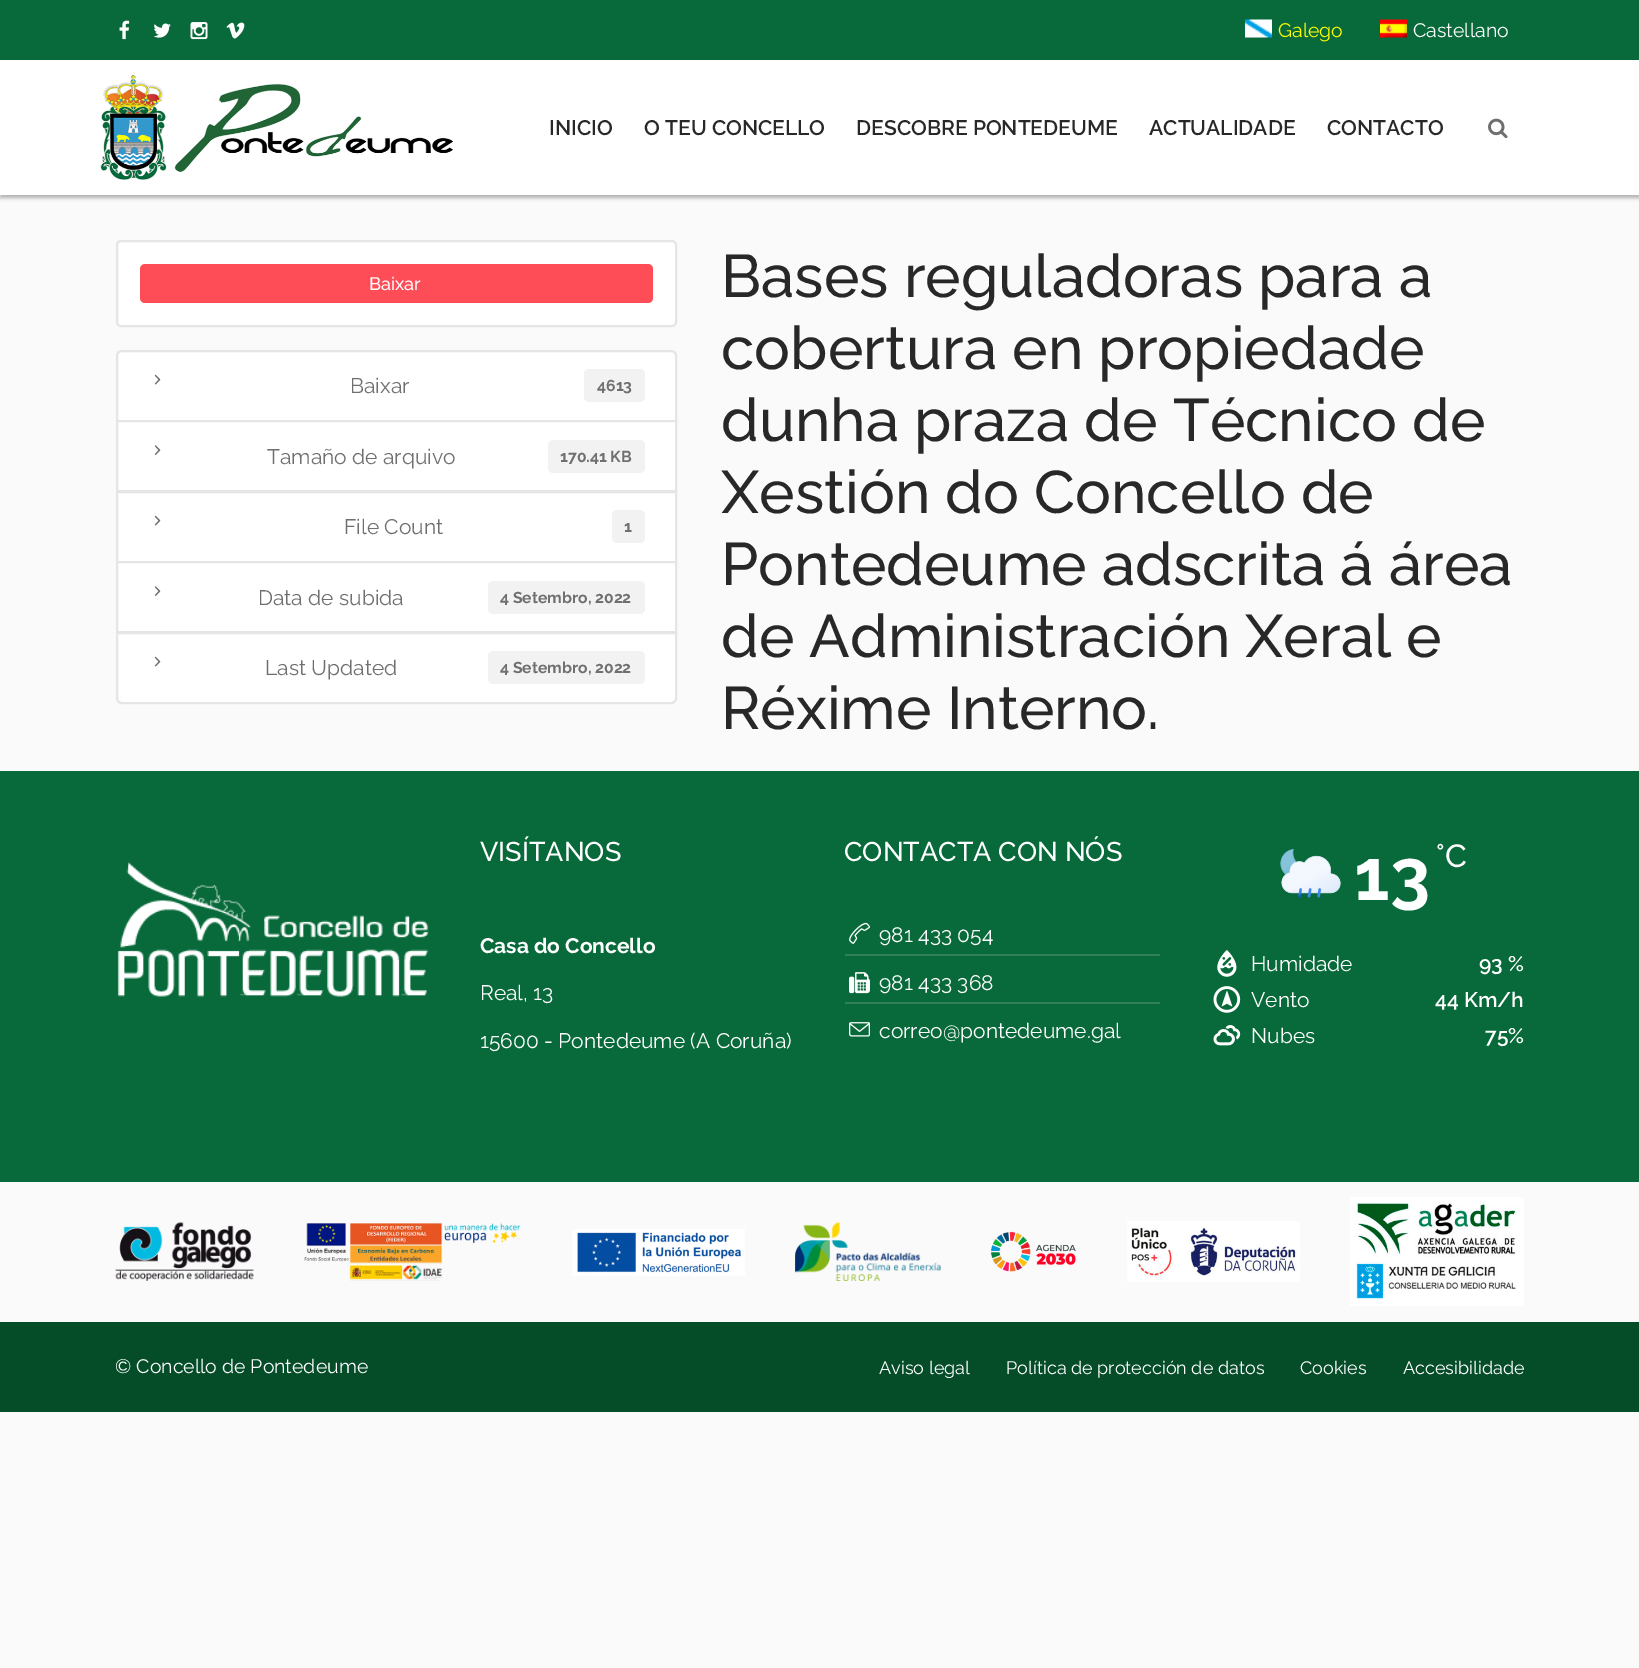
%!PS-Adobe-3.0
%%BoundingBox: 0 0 1639 1668
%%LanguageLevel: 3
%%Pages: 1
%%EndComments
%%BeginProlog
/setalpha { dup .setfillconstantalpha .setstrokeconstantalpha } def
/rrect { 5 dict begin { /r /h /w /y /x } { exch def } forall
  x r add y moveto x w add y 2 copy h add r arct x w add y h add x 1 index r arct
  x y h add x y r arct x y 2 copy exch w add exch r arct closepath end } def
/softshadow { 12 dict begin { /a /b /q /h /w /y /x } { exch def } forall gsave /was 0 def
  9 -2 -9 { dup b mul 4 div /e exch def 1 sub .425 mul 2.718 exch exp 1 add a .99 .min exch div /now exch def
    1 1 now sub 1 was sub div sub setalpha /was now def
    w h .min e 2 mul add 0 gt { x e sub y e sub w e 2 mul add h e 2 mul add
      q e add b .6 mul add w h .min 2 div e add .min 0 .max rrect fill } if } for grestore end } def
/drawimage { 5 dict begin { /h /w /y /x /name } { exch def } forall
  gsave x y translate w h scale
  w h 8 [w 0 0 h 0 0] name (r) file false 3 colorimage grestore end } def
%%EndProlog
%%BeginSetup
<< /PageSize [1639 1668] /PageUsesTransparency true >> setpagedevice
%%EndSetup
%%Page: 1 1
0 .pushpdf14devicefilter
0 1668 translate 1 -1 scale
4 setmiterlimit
0.98 setgray
0 0 1639 1668 rectfill
0.031 0.416 0.227 setrgbcolor
0 0 1639 60 rectfill
(images/1.raw) 119 20 11 20 drawimage
(images/2.raw) 153 23 18 15 drawimage
(images/3.raw) 190 22 18 18 drawimage
(images/4.raw) 226 22 19 17 drawimage
(images/5.raw) 1245 19 27 19 drawimage
(images/6.raw) 1380 19 27 19 drawimage
0 setgray
0 63 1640 135 0 2 0.3 softshadow
1 setgray
0 60 1639 135 rectfill
(images/7.raw) 100 74 353 106 drawimage
(images/8.raw) 1488 118 20 21 drawimage
117 241 559 85 4 rrect gsave fill grestore
0.898 setgray
2 setlinewidth
stroke
1 0.302 0.345 setrgbcolor
140 264 513 39 5 rrect fill
1 setgray
newpath 122 351 moveto 671 351 lineto 674 351 676 353 676 356 curveto 676 421 lineto 117 421 lineto 117 356 lineto 117 353 119 351 122 351 curveto closepath gsave fill grestore
0.898 setgray
stroke
(images/9.raw) 154 374 7 11 drawimage
0.949 setgray
584 369 61 33 5 rrect fill
1 setgray
newpath 117 421 moveto 676 421 lineto 676 491 lineto 117 491 lineto closepath gsave fill grestore
0.898 setgray
stroke
(images/10.raw) 154 445 7 10 drawimage
0.949 setgray
548 440 97 33 5 rrect fill
1 setgray
newpath 117 492 moveto 676 492 lineto 676 562 lineto 117 562 lineto closepath gsave fill grestore
0.898 setgray
stroke
(images/9.raw) 154 515 7 11 drawimage
0.949 setgray
612 510 33 33 5 rrect fill
1 setgray
newpath 117 562 moveto 676 562 lineto 676 632 lineto 117 632 lineto closepath gsave fill grestore
0.898 setgray
stroke
(images/10.raw) 154 586 7 10 drawimage
0.949 setgray
488 581 157 33 5 rrect fill
1 setgray
newpath 117 633 moveto 676 633 lineto 676 698 lineto 676 701 674 703 671 703 curveto 122 703 lineto 119 703 117 701 117 698 curveto closepath gsave fill grestore
0.898 setgray
stroke
(images/9.raw) 154 656 7 11 drawimage
0.949 setgray
488 651 157 33 5 rrect fill
0.031 0.416 0.227 setrgbcolor
0 771 1639 411 rectfill
(images/11.raw) 117 862 312 135 drawimage
0.196 0.506 0.357 setrgbcolor
845 954 315 2 rectfill
(images/12.raw) 849 922 21 22 drawimage
845 1002 315 2 rectfill
(images/13.raw) 849 972 21 22 drawimage
(images/14.raw) 849 1022 21 15 drawimage
(images/15.raw) 1280 849 61 49 drawimage
(images/16.raw) 1217 950 20 27 drawimage
(images/17.raw) 1213 986 28 27 drawimage
(images/18.raw) 1213 1025 28 21 drawimage
(images/19.raw) 115 1222 139 59 drawimage
(images/20.raw) 304 1223 217 58 drawimage
(images/21.raw) 572 1229 173 47 drawimage
(images/22.raw) 795 1222 146 59 drawimage
(images/23.raw) 990 1231 86 41 drawimage
(images/24.raw) 1127 1221 173 61 drawimage
(images/25.raw) 1350 1197 174 109 drawimage
0.02 0.298 0.161 setrgbcolor
0 1322 1639 90 rectfill
/Raleway-Regular [19.5 0 0 -19.5 0 0] selectfont
1 1 0 setrgbcolor
1278 37 moveto (Galego) show
1 setgray
1413 37 moveto (Castellano) show
/Raleway-SemiBold [21 0 0 -21 0 0] selectfont
0.157 setgray
549 135 moveto (INICIO) show
644 135 moveto (O TEU CONCELLO) show
856 135 moveto (DESCOBRE PONTEDEUME) show
1149 135 moveto (ACTUALIDADE) show
1327 135 moveto (CONTACTO) show
/Raleway-Medium [18 0 0 -18 0 0] selectfont
1 setgray
369 290 moveto (Baixar) show
/Raleway-Regular [21 0 0 -21 0 0] selectfont
0.435 setgray
350 393 moveto (Baixar) show
/Raleway-Bold [15.75 0 0 -15.75 0 0] selectfont
597 391 moveto (4613) show
/Raleway-Regular [21 0 0 -21 0 0] selectfont
267 464 moveto (Tamaño de arquivo) show
/Raleway-Bold [15.75 0 0 -15.75 0 0] selectfont
560 462 moveto (170.41 KB) show
/Raleway-Regular [21 0 0 -21 0 0] selectfont
344 534 moveto (File Count) show
/Raleway-Bold [15.75 0 0 -15.75 0 0] selectfont
624 532 moveto (1) show
/Raleway-Regular [21 0 0 -21 0 0] selectfont
258 605 moveto (Data de subida) show
/Raleway-Bold [15.75 0 0 -15.75 0 0] selectfont
500 603 moveto (4 Setembro, 2022) show
/Raleway-Regular [21 0 0 -21 0 0] selectfont
265 675 moveto (Last Updated) show
/Raleway-Bold [15.75 0 0 -15.75 0 0] selectfont
500 673 moveto (4 Setembro, 2022) show
/Raleway-Medium [60 0 0 -60 0 0] selectfont
0.157 setgray
721 297 moveto (Bases reguladoras para a) show
721 369 moveto (cobertura en propiedade) show
721 441 moveto (dunha praza de Técnico de) show
721 513 moveto (Xestión do Concello de) show
721 585 moveto (Pontedeume adscrita á área) show
721 657 moveto (de Administración Xeral e) show
721 729 moveto (Réxime Interno.) show
/Raleway-Medium [27 0 0 -27 0 0] selectfont
1 setgray
480 861 moveto (VISÍTANOS) show
/Raleway-Bold [21 0 0 -21 0 0] selectfont
480 953 moveto (Casa do Concello) show
/Raleway-Regular [21 0 0 -21 0 0] selectfont
480 1000 moveto (Real, 13) show
480 1048 moveto (15600 - Pontedeume \(A Coruña\)) show
/Raleway-Medium [27 0 0 -27 0 0] selectfont
844 861 moveto (CONTACTA CON NÓS) show
/Raleway-Regular [21 0 0 -21 0 0] selectfont
879 942 moveto (981 433 054) show
879 990 moveto (981 433 368) show
879 1038 moveto (correo@pontedeume.gal) show
/Raleway-Bold [72 0 0 -72 0 0] selectfont
1354 900 moveto (13) show
/Raleway-Medium [32 0 0 -32 0 0] selectfont
1436 867 moveto (°C) show
/Raleway-Regular [21 0 0 -21 0 0] selectfont
1251 971 moveto (Humidade) show
/Raleway-SemiBold [21 0 0 -21 0 0] selectfont
1479 971 moveto (93 %) show
/Raleway-Regular [21 0 0 -21 0 0] selectfont
1251 1007 moveto (Vento) show
/Raleway-SemiBold [21 0 0 -21 0 0] selectfont
1435 1007 moveto (44 Km/h) show
/Raleway-Regular [21 0 0 -21 0 0] selectfont
1251 1043 moveto (Nubes) show
/Raleway-SemiBold [21 0 0 -21 0 0] selectfont
1485 1043 moveto (75%) show
gsave
116 1349 738 36 rectclip
/Raleway-Regular [19.5 0 0 -19.5 0 0] selectfont
115 1373 moveto (© Concello de Pontedeume) show
grestore
/Raleway-Regular [18 0 0 -18 0 0] selectfont
879 1374 moveto (Aviso legal) show
1006 1374 moveto (Política de protección de datos) show
1300 1374 moveto (Cookies) show
1403 1374 moveto (Accesibilidade) show
.poppdf14devicefilter showpage
%%EOF
